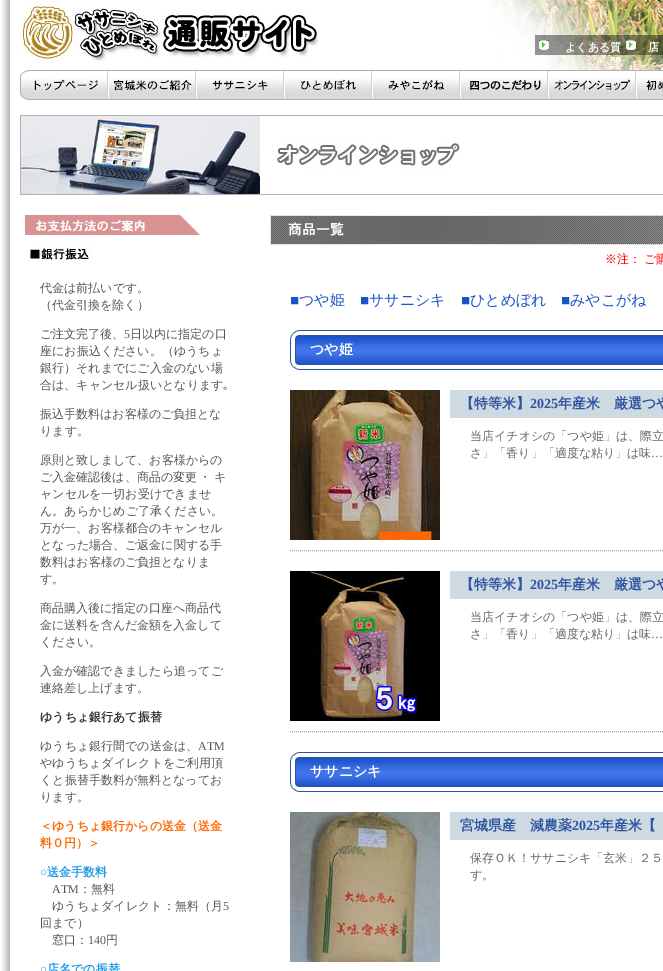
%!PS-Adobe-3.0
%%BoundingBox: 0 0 663 971
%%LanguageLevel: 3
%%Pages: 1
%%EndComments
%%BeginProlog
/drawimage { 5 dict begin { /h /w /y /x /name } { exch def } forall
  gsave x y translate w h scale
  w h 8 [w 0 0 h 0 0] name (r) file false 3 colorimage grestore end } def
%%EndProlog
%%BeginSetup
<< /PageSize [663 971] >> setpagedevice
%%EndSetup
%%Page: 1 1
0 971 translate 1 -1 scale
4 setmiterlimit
1 setgray
0 0 663 971 rectfill
(images/1.raw) 1 0 9 971 drawimage
(images/2.raw) 490 0 173 70 drawimage
(images/3.raw) 20 0 299 64 drawimage
(images/4.raw) 539 40 10 10 drawimage
(images/4.raw) 626 40 10 10 drawimage
(images/5.raw) 20 70 88 30 drawimage
(images/6.raw) 108 70 88 30 drawimage
(images/7.raw) 196 70 88 30 drawimage
(images/8.raw) 284 70 88 30 drawimage
(images/9.raw) 372 70 88 30 drawimage
(images/10.raw) 460 70 88 30 drawimage
(images/11.raw) 548 70 88 30 drawimage
(images/12.raw) 636 70 27 30 drawimage
(images/13.raw) 20 115 643 80 drawimage
(images/14.raw) 25 215 175 20 drawimage
(images/15.raw) 29 244 63 16 drawimage
(images/16.raw) 270 215 393 30 drawimage
(images/17.raw) 290 330 373 40 drawimage
0.667 setgray
[1 1] 0 setdash
newpath 290 550.5 moveto 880 550.5 lineto stroke
(images/18.raw) 290 390 150 150 drawimage
0.808 0.855 0.886 setrgbcolor
450 390 213 28 rectfill
0.667 setgray
newpath 290 731.5 moveto 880 731.5 lineto stroke
(images/19.raw) 290 571 150 150 drawimage
0.808 0.855 0.886 setrgbcolor
450 571 213 28 rectfill
(images/17.raw) 290 752 373 40 drawimage
(images/20.raw) 290 812 150 150 drawimage
450 812 213 28 rectfill
/WenQuanYiZenHei-Bold [11 0 0 -11 0 0] selectfont
1 setgray
565 51 moveto (よくある質) show
610 66 moveto (問) show
648 51 moveto (店) show
/WenQuanYiZenHei-Medium [12 0 0 -12 0 0] selectfont
0.333 setgray
40 292 moveto (代金は前払いです。) show
40 309 moveto (（代金引換を除く）) show
40 338 moveto (ご注文完了後、) show
/LiberationSerif-Regular [12 0 0 -12 0 0] selectfont
124 338 moveto (5) show
/WenQuanYiZenHei-Medium [12 0 0 -12 0 0] selectfont
130 338 moveto (日以内に指定の口) show
40 355 moveto (座にお振込ください。（ゆうちょ) show
40 372 moveto (銀行）それまでにご入金のない場) show
40 389 moveto (合は、キャンセル扱いとなります) show
/IPAPGothic-Regular [12 0 0 -12 0 0] selectfont
223 389 moveto (｡) show
/WenQuanYiZenHei-Medium [12 0 0 -12 0 0] selectfont
40 418 moveto (振込手数料はお客様のご負担とな) show
40 435 moveto (ります。) show
40 464 moveto (原則と致しまして、お客様からの) show
40 481 moveto -1 0 32 (ご入金確認後は、商品の変更 ・ キ) widthshow
40 498 moveto (ャンセルを一切お受けできませ) show
40 515 moveto (ん。あらかじめご了承ください。) show
40 532 moveto (万が一、お客様都合のキャンセル) show
40 549 moveto (となった場合、ご返金に関する手) show
40 566 moveto (数料はお客様のご負担となりま) show
40 583 moveto (す。) show
40 612 moveto (商品購入後に指定の口座へ商品代) show
40 629 moveto (金に送料を含んだ金額を入金して) show
40 646 moveto (ください。) show
40 675 moveto (入金が確認できましたら追ってご) show
40 692 moveto (連絡差し上げます。) show
/WenQuanYiZenHei-Bold [12 0 0 -12 0 0] selectfont
0.2 setgray
40 721 moveto (ゆうちょ銀行あて振替) show
/WenQuanYiZenHei-Medium [12 0 0 -12 0 0] selectfont
0.333 setgray
40 750 moveto (ゆうちょ銀行間での送金は、) show
/LiberationSerif-Regular [12 0 0 -12 0 0] selectfont
198 750 moveto (ATM) show
/WenQuanYiZenHei-Medium [12 0 0 -12 0 0] selectfont
40 767 moveto (やゆうちょダイレクトをご利用頂) show
40 784 moveto (くと振替手数料が無料となってお) show
40 801 moveto (ります。) show
/WenQuanYiZenHei-Bold [12 0 0 -12 0 0] selectfont
1 0.4 0 setrgbcolor
40 830 moveto (＜ゆうちょ銀行からの送金（送金) show
40 847 moveto (料０円）＞) show
/LiberationSerif-Bold [12 0 0 -12 0 0] selectfont
0.125 0.608 0.914 setrgbcolor
40 876 moveto (○) show
/WenQuanYiZenHei-Bold [12 0 0 -12 0 0] selectfont
47 876 moveto (送金手数料) show
/LiberationSerif-Regular [12 0 0 -12 0 0] selectfont
0.333 setgray
52 893 moveto (ATM) show
/WenQuanYiZenHei-Medium [12 0 0 -12 0 0] selectfont
79 893 moveto (：無料) show
52 910 moveto (ゆうちょダイレクト：無料（月) show
/LiberationSerif-Regular [12 0 0 -12 0 0] selectfont
223 910 moveto (5) show
/WenQuanYiZenHei-Medium [12 0 0 -12 0 0] selectfont
40 927 moveto (回まで）) show
52 944 moveto (窓口：) show
/LiberationSerif-Regular [12 0 0 -12 0 0] selectfont
88 944 moveto (140) show
/WenQuanYiZenHei-Medium [12 0 0 -12 0 0] selectfont
106 944 moveto (円) show
/LiberationSerif-Bold [12 0 0 -12 0 0] selectfont
0.125 0.608 0.914 setrgbcolor
40 973 moveto (○) show
/WenQuanYiZenHei-Bold [12 0 0 -12 0 0] selectfont
47 973 moveto (店名での振替) show
/WenQuanYiZenHei-Medium [12 0 0 -12 0 0] selectfont
1 0 0 setrgbcolor
605 263 moveto -1 0 32 (※注： ご購) widthshow
/LiberationSerif-Regular [15 0 0 -15 0 0] selectfont
0.102 0.325 0.78 setrgbcolor
290 305 moveto (■) show
/WenQuanYiZenHei-Medium [15 0 0 -15 0 0] selectfont
299 305 moveto (つや姫) show
/LiberationSerif-Regular [15 0 0 -15 0 0] selectfont
360 305 moveto (■) show
/WenQuanYiZenHei-Medium [15 0 0 -15 0 0] selectfont
369 305 moveto (ササニシキ) show
/LiberationSerif-Regular [15 0 0 -15 0 0] selectfont
461 305 moveto (■) show
/WenQuanYiZenHei-Medium [15 0 0 -15 0 0] selectfont
470 305 moveto (ひとめぼれ) show
/LiberationSerif-Regular [15 0 0 -15 0 0] selectfont
561 305 moveto (■) show
/WenQuanYiZenHei-Medium [15 0 0 -15 0 0] selectfont
570 305 moveto (みやこがね) show
/WenQuanYiZenHei-Bold [14 0 0 -14 0 0] selectfont
1 setgray
310 354 moveto (つや姫) show
0.184 0.322 0.627 setrgbcolor
460 408 moveto (【特等米】) show
/LiberationSerif-Bold [14 0 0 -14 0 0] selectfont
530 408 moveto (2025) show
/WenQuanYiZenHei-Bold [14 0 0 -14 0 0] selectfont
558 408 moveto (年産米　厳選つや) show
/WenQuanYiZenHei-Medium [12 0 0 -12 0 0] selectfont
0.4 setgray
470 440 moveto (当店イチオシの「つや姫」は、際立) show
470 457 moveto (さ」「香り」「適度な粘り」は味) show
/LiberationSerif-Regular [12 0 0 -12 0 0] selectfont
651 457 moveto (…) show
/WenQuanYiZenHei-Bold [14 0 0 -14 0 0] selectfont
0.184 0.322 0.627 setrgbcolor
460 589 moveto (【特等米】) show
/LiberationSerif-Bold [14 0 0 -14 0 0] selectfont
530 589 moveto (2025) show
/WenQuanYiZenHei-Bold [14 0 0 -14 0 0] selectfont
558 589 moveto (年産米　厳選つや) show
/WenQuanYiZenHei-Medium [12 0 0 -12 0 0] selectfont
0.4 setgray
470 621 moveto (当店イチオシの「つや姫」は、際立) show
470 638 moveto (さ」「香り」「適度な粘り」は味) show
/LiberationSerif-Regular [12 0 0 -12 0 0] selectfont
651 638 moveto (…) show
/WenQuanYiZenHei-Bold [14 0 0 -14 0 0] selectfont
1 setgray
310 776 moveto (ササニシキ) show
0.184 0.322 0.627 setrgbcolor
460 830 moveto (宮城県産　減農薬) show
/LiberationSerif-Bold [14 0 0 -14 0 0] selectfont
572 830 moveto (2025) show
/WenQuanYiZenHei-Bold [14 0 0 -14 0 0] selectfont
600 830 moveto (年産米【) show
/WenQuanYiZenHei-Medium [12 0 0 -12 0 0] selectfont
0.4 setgray
470 862 moveto (保存ＯＫ！ササニシキ「玄米」２５) show
470 879 moveto (す。) show
showpage
%%EOF
